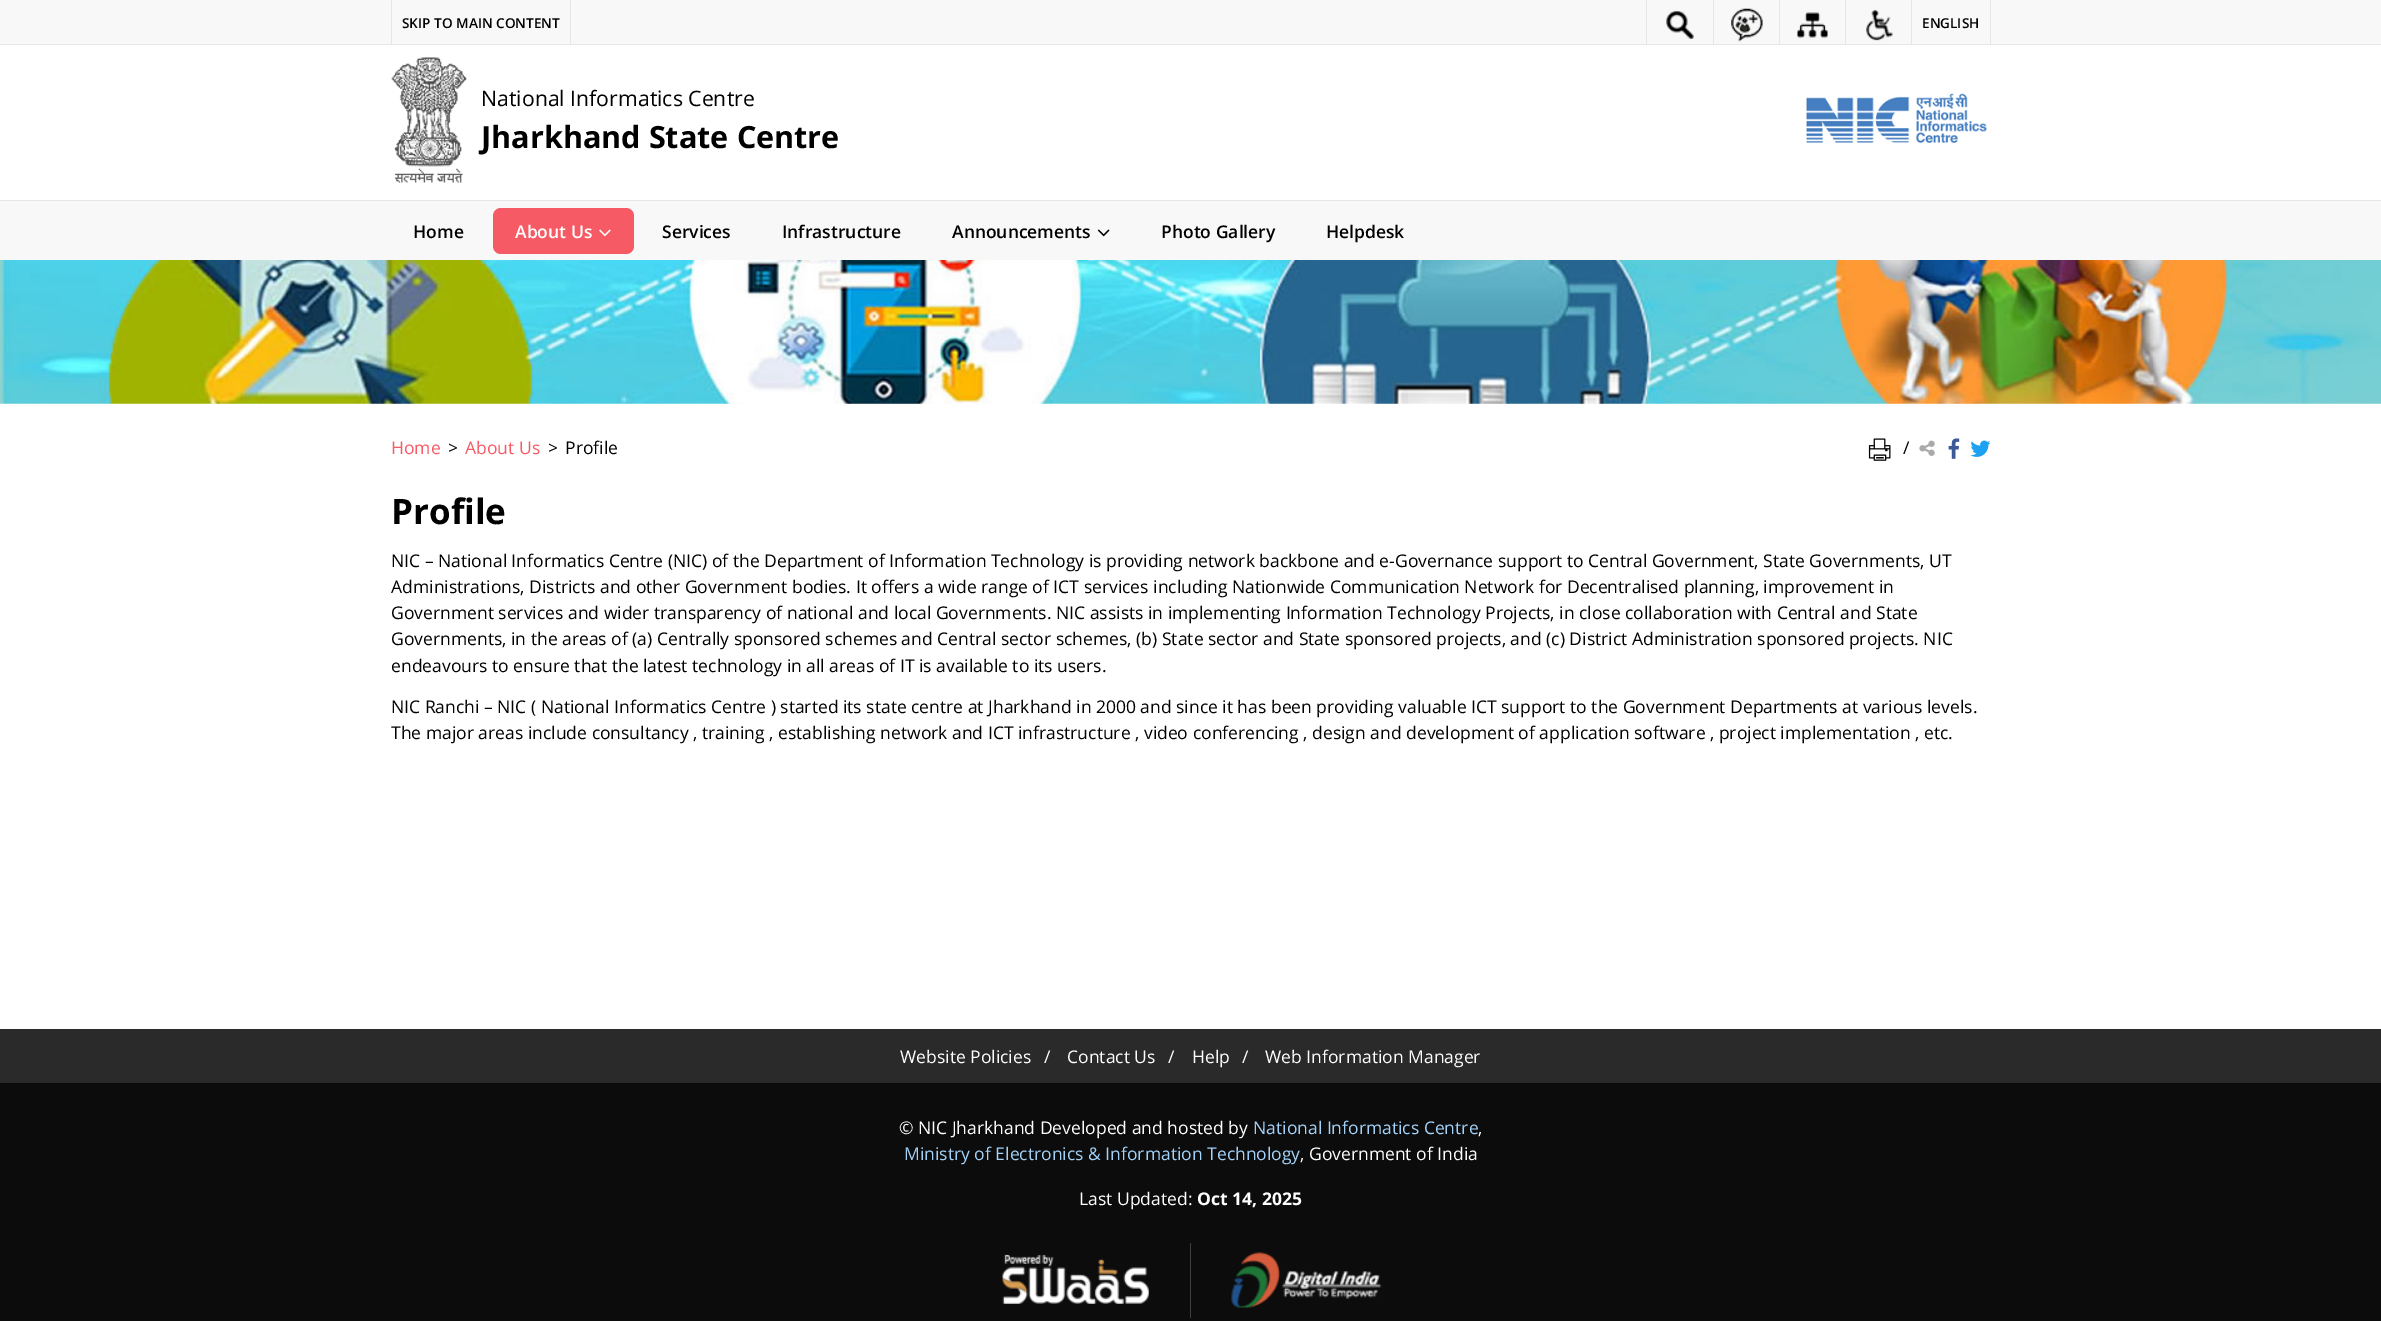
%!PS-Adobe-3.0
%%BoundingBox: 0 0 2381 1321
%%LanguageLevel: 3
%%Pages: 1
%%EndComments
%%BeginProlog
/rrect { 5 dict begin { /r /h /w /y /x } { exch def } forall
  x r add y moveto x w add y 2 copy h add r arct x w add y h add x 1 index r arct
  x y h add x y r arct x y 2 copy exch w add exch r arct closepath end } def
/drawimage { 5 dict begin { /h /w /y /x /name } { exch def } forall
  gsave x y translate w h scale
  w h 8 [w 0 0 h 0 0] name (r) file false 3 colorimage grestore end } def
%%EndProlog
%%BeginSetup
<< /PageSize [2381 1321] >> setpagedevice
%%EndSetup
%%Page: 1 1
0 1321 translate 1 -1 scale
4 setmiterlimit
1 setgray
0 0 2381 1321 rectfill
0.973 setgray
0 0 2381 44 rectfill
0.902 setgray
0 44 2381 1 rectfill
570 0 1 44 rectfill
391 0 1 44 rectfill
1646 0 1 44 rectfill
(images/1.raw) 1666 11 28 28 drawimage
1713 0 1 44 rectfill
(images/2.raw) 1731 8 32 34 drawimage
1779 0 1 44 rectfill
(images/3.raw) 1797 12 31 26 drawimage
1845 0 1 44 rectfill
(images/4.raw) 1866 9 27 32 drawimage
1990 0 1 44 rectfill
1911 0 1 44 rectfill
(images/5.raw) 391 57 76 126 drawimage
(images/6.raw) 1806 93 181 50 drawimage
0.973 setgray
0 201 2381 59 rectfill
0.902 setgray
0 200 2381 1 rectfill
0.965 0.353 0.392 setrgbcolor
493 208 141 46 8 rrect fill
(images/7.raw) 599 229 12 8 drawimage
(images/8.raw) 1097 229 13 8 drawimage
(images/9.raw) 0 260 2381 144 drawimage
(images/10.raw) 1868 438 23 23 drawimage
(images/11.raw) 1919 440 16 16 drawimage
(images/12.raw) 1948 438 12 21 drawimage
(images/13.raw) 1970 440 21 17 drawimage
0.165 setgray
0 1029 2381 54 rectfill
0.047 setgray
0 1083 2381 238 rectfill
(images/14.raw) 1002 1254 147 50 drawimage
0.247 setgray
1190 1243 1 75 rectfill
(images/15.raw) 1231 1252 151 56 drawimage
/OpenSans-SemiBold [13.6 0 0 -13.6 0 0] selectfont
0 setgray
402 28 moveto (SKIP TO MAIN CONTENT) show
1922 28 moveto (ENGLISH) show
/OpenSans-Regular [21.25 0 0 -21.25 0 0] selectfont
481 106 moveto (National Informatics Centre) show
/OpenSans-Bold [30.6 0 0 -30.6 0 0] selectfont
481 148 moveto (Jharkhand State Centre) show
/OpenSans-SemiBold [17.5 0 0 -17.5 0 0] selectfont
413 238 moveto (Home) show
1 setgray
515 238 moveto (About Us) show
0 setgray
662 238 moveto (Services) show
782 238 moveto (Infrastructure) show
952 238 moveto (Announcements) show
1161 238 moveto (Photo Gallery) show
1326 238 moveto (Helpdesk) show
/OpenSans-Regular [17.5 0 0 -17.5 0 0] selectfont
0.965 0.353 0.392 setrgbcolor
391 454 moveto (Home) show
0 setgray
448 454 moveto (>) show
0.965 0.353 0.392 setrgbcolor
465 454 moveto (About Us) show
0 setgray
548 454 moveto (>) show
565 454 moveto (Profile) show
1903 454 moveto (/) show
/OpenSans-Bold [35 0 0 -35 0 0] selectfont
391 524 moveto (Profile) show
/OpenSans-Regular [17.5 0 0 -17.5 0 0] selectfont
391 567 moveto (NIC – National Informatics Centre \(NIC\) of the Department of Information Technology is providing network backbone and e-Governance support to Central Government, State Governments, UT) show
391 593 moveto (Administrations, Districts and other Government bodies. It offers a wide range of ICT services including Nationwide Communication Network for Decentralised planning, improvement in) show
391 619 moveto (Government services and wider transparency of national and local Governments. NIC assists in implementing Information Technology Projects, in close collaboration with Central and State) show
391 645 moveto (Governments, in the areas of \(a\) Centrally sponsored schemes and Central sector schemes, \(b\) State sector and State sponsored projects, and \(c\) District Administration sponsored projects. NIC) show
391 672 moveto (endeavours to ensure that the latest technology in all areas of IT is available to its users.) show
391 713 moveto (NIC Ranchi – NIC \( National Informatics Centre \) started its state centre at Jharkhand in 2000 and since it has been providing valuable ICT support to the Government Departments at various levels.) show
391 739 moveto (The major areas include consultancy , training , establishing network and ICT infrastructure , video conferencing , design and development of application software , project implementation , etc.) show
1 setgray
900 1063 moveto (Website Policies) show
1044 1063 moveto (/) show
1067 1063 moveto (Contact Us) show
1168 1063 moveto (/) show
1192 1063 moveto (Help) show
1242 1063 moveto (/) show
1265 1063 moveto (Web Information Manager) show
899 1134 moveto (© NIC Jharkhand Developed and hosted by) show
0.639 0.824 0.976 setrgbcolor
1253 1134 moveto (National Informatics Centre) show
1 setgray
1478 1134 moveto (,) show
0.639 0.824 0.976 setrgbcolor
904 1160 moveto (Ministry of Electronics & Information Technology) show
1 setgray
1300 1160 moveto (, Government of India) show
1079 1205 moveto (Last Updated:) show
/OpenSans-Bold [17.5 0 0 -17.5 0 0] selectfont
1197 1205 moveto (Oct 14, 2025) show
showpage
%%EOF
